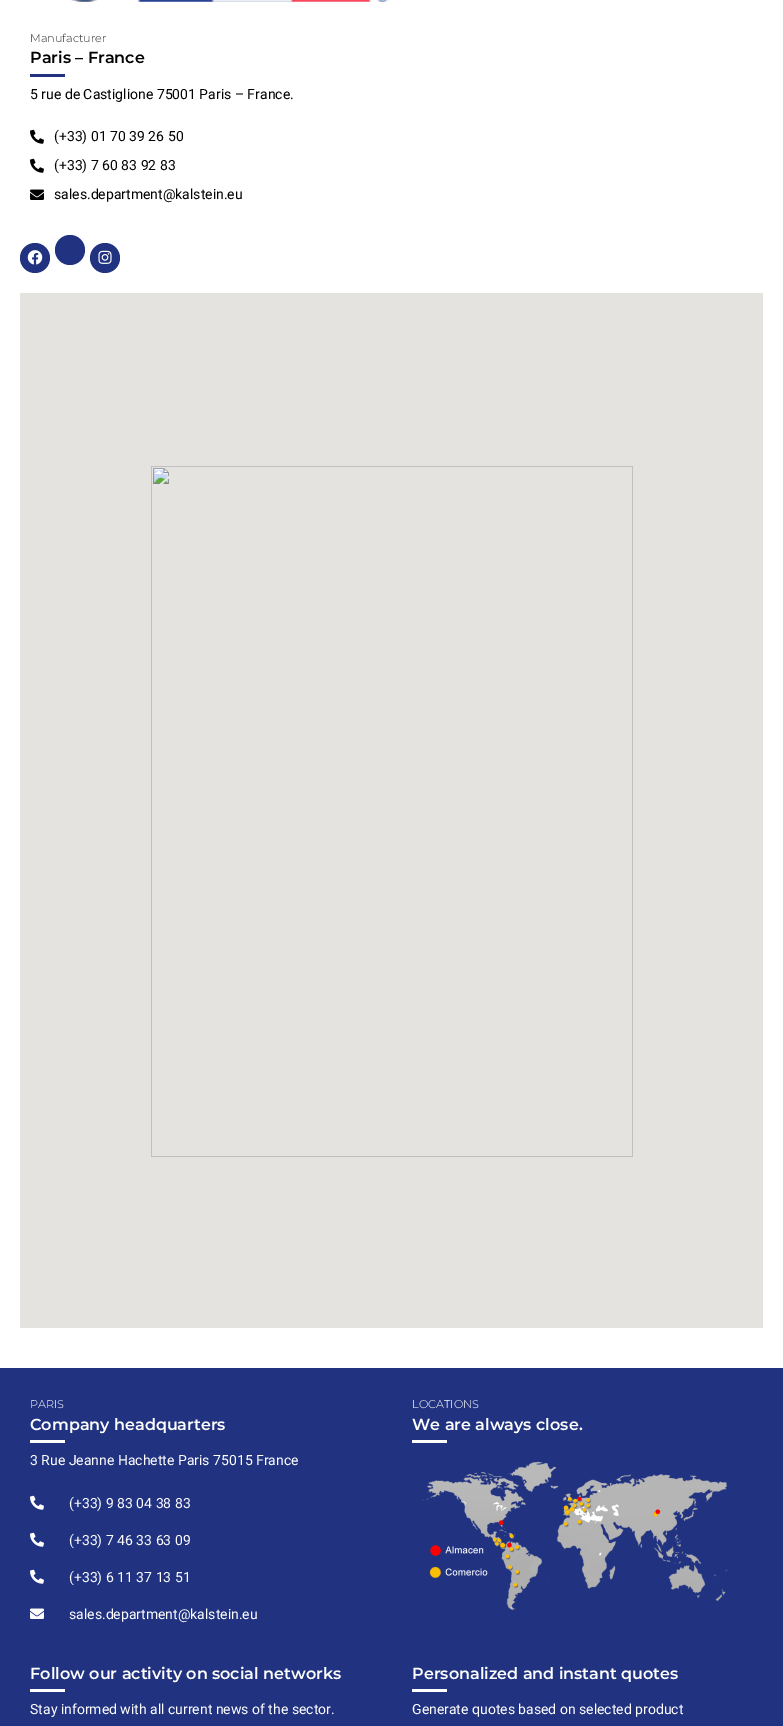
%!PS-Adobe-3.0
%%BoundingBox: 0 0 783 1726
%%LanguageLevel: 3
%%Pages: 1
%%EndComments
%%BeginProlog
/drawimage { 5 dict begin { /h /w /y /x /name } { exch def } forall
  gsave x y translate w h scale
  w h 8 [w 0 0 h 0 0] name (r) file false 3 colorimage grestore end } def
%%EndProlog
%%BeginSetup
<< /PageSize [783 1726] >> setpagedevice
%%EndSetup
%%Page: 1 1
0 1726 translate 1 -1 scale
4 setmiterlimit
1 setgray
0 0 783 1726 rectfill
(images/1.raw) 71 0 318 2 drawimage
0.129 0.196 0.502 setrgbcolor
30 74 35 3 rectfill
(images/2.raw) 30 129 14 15 drawimage
(images/2.raw) 30 158 14 15 drawimage
(images/3.raw) 30 189 14 11 drawimage
newpath 35 258 15 0 360 arc closepath fill
(images/4.raw) 27 250 16 15 drawimage
newpath 70 250 15 0 360 arc closepath fill
newpath 105 258 15 0 360 arc closepath fill
(images/5.raw) 98 250 14 14 drawimage
(images/6.raw) 20 293 743 1035 drawimage
0 1368 783 358 rectfill
1 setgray
30 1440 35 3 rectfill
(images/7.raw) 30 1495 14 15 drawimage
(images/7.raw) 30 1532 14 15 drawimage
(images/7.raw) 30 1569 14 15 drawimage
(images/8.raw) 30 1608 14 11 drawimage
412 1440 35 3 rectfill
(images/9.raw) 422 1461 306 149 drawimage
30 1689 35 3 rectfill
412 1689 35 3 rectfill
/Montserrat-Light [11.25 0 0 -11.25 0 0] selectfont
0.2 setgray
30 42 moveto (Manufacturer) show
/Montserrat-SemiBold [16 0 0 -16 0 0] selectfont
0 setgray
30 63 moveto (Paris – France) show
/Roboto-Regular [14 0 0 -14 0 0] selectfont
30 99 moveto (5 rue de Castiglione 75001 Paris – France.) show
54 141 moveto (\(+33\) 01 70 39 26 50) show
54 170 moveto (\(+33\) 7 60 83 92 83) show
54 199 moveto (sales.department@kalstein.eu) show
/Montserrat-Light [11.25 0 0 -11.25 0 0] selectfont
1 setgray
30 1408 moveto (PARIS) show
/Montserrat-SemiBold [16 0 0 -16 0 0] selectfont
30 1430 moveto (Company headquarters) show
/Roboto-Regular [14 0 0 -14 0 0] selectfont
30 1465 moveto (3 Rue Jeanne Hachette Paris 75015 France) show
69 1508 moveto (\(+33\) 9 83 04 38 83) show
69 1545 moveto (\(+33\) 7 46 33 63 09) show
69 1582 moveto (\(+33\) 6 11 37 13 51) show
69 1619 moveto (sales.department@kalstein.eu) show
/Montserrat-Light [11.25 0 0 -11.25 0 0] selectfont
412 1408 moveto (LOCATIONS) show
/Montserrat-SemiBold [16 0 0 -16 0 0] selectfont
412 1430 moveto (We are always close.) show
30 1679 moveto (Follow our activity on social networks) show
/Roboto-Regular [14 0 0 -14 0 0] selectfont
30 1714 moveto (Stay informed with all current news of the sector.) show
/Montserrat-SemiBold [16 0 0 -16 0 0] selectfont
412 1679 moveto (Personalized and instant quotes) show
/Roboto-Regular [14 0 0 -14 0 0] selectfont
412 1714 moveto (Generate quotes based on selected product) show
showpage
%%EOF
